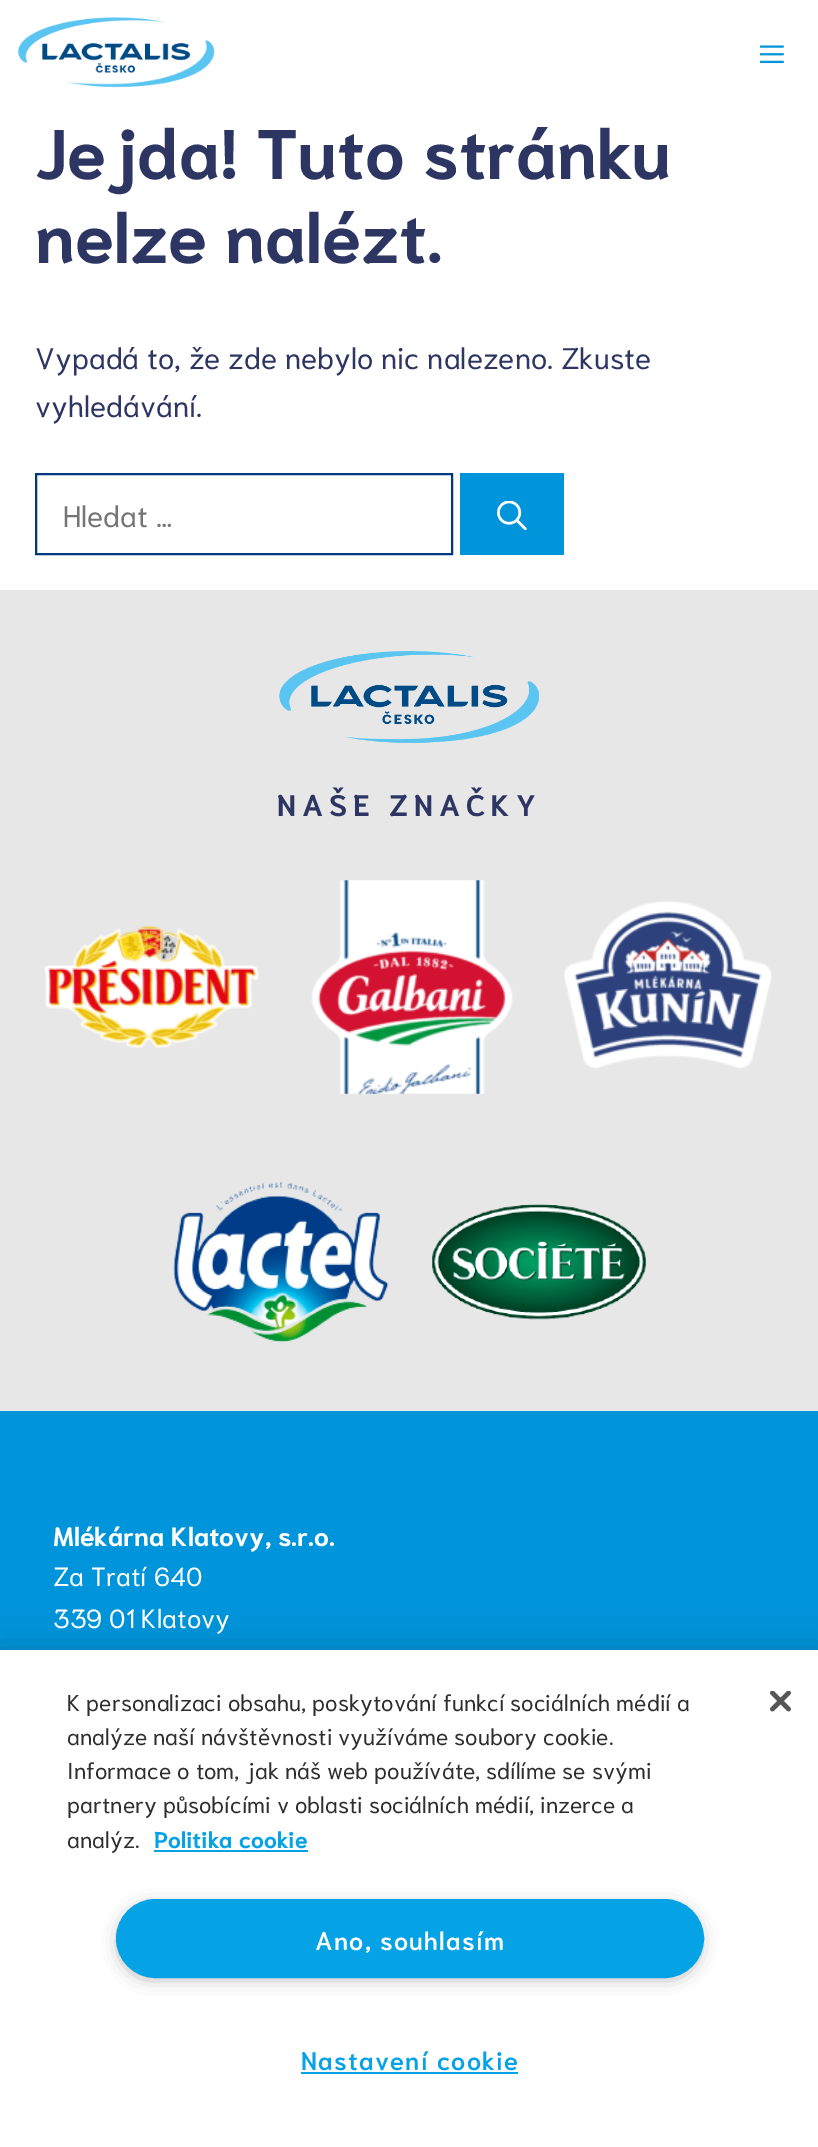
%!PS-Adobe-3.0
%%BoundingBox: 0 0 818 2147
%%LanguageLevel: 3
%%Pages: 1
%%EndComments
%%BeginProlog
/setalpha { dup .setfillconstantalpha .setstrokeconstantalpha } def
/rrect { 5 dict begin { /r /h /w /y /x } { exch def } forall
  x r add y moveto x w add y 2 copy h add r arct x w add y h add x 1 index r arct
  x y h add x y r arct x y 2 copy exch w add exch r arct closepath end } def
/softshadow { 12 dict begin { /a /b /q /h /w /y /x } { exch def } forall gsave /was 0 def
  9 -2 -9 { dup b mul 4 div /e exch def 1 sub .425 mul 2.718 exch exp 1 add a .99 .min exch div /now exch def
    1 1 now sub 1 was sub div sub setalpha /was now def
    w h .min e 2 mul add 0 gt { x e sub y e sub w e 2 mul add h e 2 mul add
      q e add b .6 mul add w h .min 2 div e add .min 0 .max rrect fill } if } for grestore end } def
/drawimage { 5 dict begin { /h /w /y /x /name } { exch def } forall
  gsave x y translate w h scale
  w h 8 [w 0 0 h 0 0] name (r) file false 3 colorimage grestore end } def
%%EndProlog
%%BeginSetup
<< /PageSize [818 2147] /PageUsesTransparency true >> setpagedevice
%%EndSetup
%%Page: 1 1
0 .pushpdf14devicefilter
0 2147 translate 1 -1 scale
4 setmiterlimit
1 setgray
0 0 818 2147 rectfill
(images/1.raw) 18 17 197 71 drawimage
(images/2.raw) 760 45 24 19 drawimage
0 0.224 0.506 setrgbcolor
2 setlinewidth
36 474 416 80 rectstroke
0 0.58 0.855 setrgbcolor
460 473 104 82 rectfill
(images/3.raw) 497 501 30 29 drawimage
0.906 setgray
0 590 818 821 rectfill
(images/4.raw) 279 651 261 92 drawimage
(images/5.raw) 44 925 215 123 drawimage
(images/6.raw) 311 880 202 214 drawimage
(images/7.raw) 564 901 208 168 drawimage
(images/8.raw) 173 1181 216 162 drawimage
(images/9.raw) 432 1204 214 116 drawimage
0 0.58 0.855 setrgbcolor
0 1411 818 239 rectfill
0 setgray
0 1650 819 497 0 16 0.2 softshadow
1 setgray
0 1650 818 497 rectfill
0.02 0.635 0.902 setrgbcolor
154 1850 154 2 rectfill
0.6 setgray
121 1908 577 68 34 9 1 softshadow
0.02 0.635 0.902 setrgbcolor
117 1900 586 77 38.5 rrect gsave fill grestore
stroke
301 2072 217 2 rectfill
(images/10.raw) 770 1691 21 21 drawimage
/Niramit-Bold [70 0 0 -70 0 0] selectfont
0.176 0.212 0.388 setrgbcolor
35 179 moveto (Jejda! Tuto stránku) show
35 263 moveto (nelze nalézt.) show
/Niramit-Regular [29.75 0 0 -29.75 0 0] selectfont
35 369 moveto (Vypadá to, že zde nebylo nic nalezeno. Zkuste) show
35 417 moveto (vyhledávání.) show
0.459 setgray
63 527 moveto (Hledat …) show
/Niramit-Bold [29.75 0 0 -29.75 0 0] selectfont
0.176 0.212 0.388 setrgbcolor
277 816 moveto 6 0 (NAŠE ZNAČKY) ashow
/Niramit-Bold [26.25 0 0 -26.25 0 0] selectfont
1 setgray
53 1546 moveto (Mlékárna Klatovy, s.r.o.) show
/Niramit-Regular [26.25 0 0 -26.25 0 0] selectfont
53 1586 moveto (Za Tratí 640) show
53 1628 moveto (339 01 Klatovy) show
/Niramit-Regular [22.75 0 0 -22.75 0 0] selectfont
0.18 setgray
67 1711 moveto (K personalizaci obsahu, poskytování funkcí sociálních médií a) show
67 1745 moveto (analýze naší návštěvnosti využíváme soubory cookie.) show
67 1779 moveto (Informace o tom, jak náš web používáte, sdílíme se svými) show
67 1813 moveto (partnery působícími v oblasti sociálních médií, inzerce a) show
67 1848 moveto (analýz.) show
/Niramit-Bold [22.75 0 0 -22.75 0 0] selectfont
0.02 0.635 0.902 setrgbcolor
154 1848 moveto (Politika cookie) show
/Niramit-SemiBold [25.25 0 0 -25.25 0 0] selectfont
1 setgray
315 1950 moveto 1.25 0 (Ano, souhlasím) ashow
0.02 0.635 0.902 setrgbcolor
301 2070 moveto 1.25 0 (Nastavení cookie) ashow
.poppdf14devicefilter showpage
%%EOF
